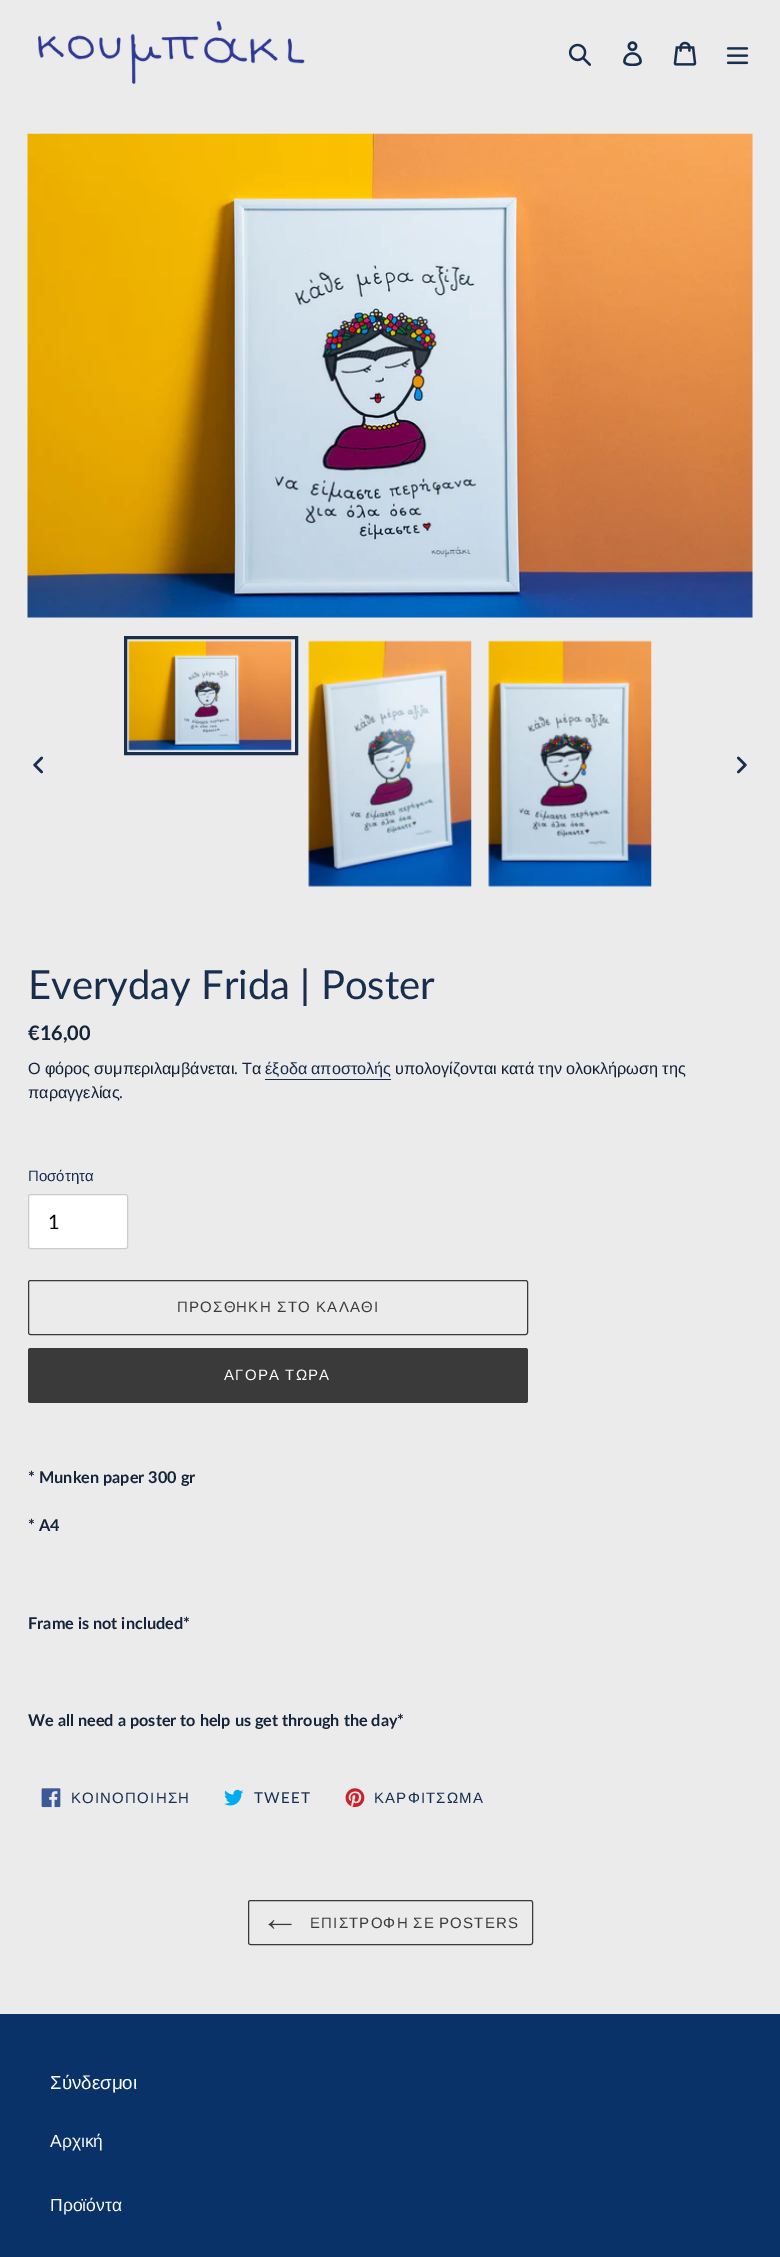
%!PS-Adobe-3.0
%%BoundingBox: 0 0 780 2257
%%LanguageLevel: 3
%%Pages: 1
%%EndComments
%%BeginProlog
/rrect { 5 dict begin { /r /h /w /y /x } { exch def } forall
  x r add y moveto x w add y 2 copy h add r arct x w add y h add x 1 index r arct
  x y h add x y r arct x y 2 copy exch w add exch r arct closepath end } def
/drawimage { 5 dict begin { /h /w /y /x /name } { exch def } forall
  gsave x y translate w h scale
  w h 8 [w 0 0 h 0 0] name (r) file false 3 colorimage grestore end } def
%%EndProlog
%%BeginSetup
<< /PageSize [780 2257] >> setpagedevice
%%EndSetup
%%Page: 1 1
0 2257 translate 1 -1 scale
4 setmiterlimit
0.922 setgray
0 0 780 2257 rectfill
(images/1.raw) 38 21 267 63 drawimage
(images/2.raw) 568 43 23 23 drawimage
(images/3.raw) 623 41 19 25 drawimage
(images/4.raw) 673 41 24 25 drawimage
(images/5.raw) 726 47 23 18 drawimage
(images/6.raw) 27 133 726 485 drawimage
(images/7.raw) 33 756 10 18 drawimage
0.09 0.18 0.302 setrgbcolor
3 setlinewidth
125.5 637.5 171 116 rectstroke
(images/8.raw) 128 640 164 111 drawimage
(images/9.raw) 308 640 164 247 drawimage
(images/10.raw) 488 640 164 247 drawimage
(images/11.raw) 737 756 10 18 drawimage
265 1079 126 1 rectfill
1 setgray
28.5 1194.5 99 54 2 rrect gsave fill grestore
0.8 setgray
1 setlinewidth
stroke
0.227 setgray
28.5 1280.5 499 54 2 rrect stroke
28 1348 500 55 2.5 rrect fill
(images/12.raw) 41 1788 20 20 drawimage
(images/13.raw) 224 1789 20 17 drawimage
(images/14.raw) 345 1788 20 19 drawimage
248.5 1900.5 284 44 2 rrect stroke
(images/15.raw) 268 1920 24 9 drawimage
0.035 0.196 0.408 setrgbcolor
0 2014 780 243 rectfill
/Lato-Regular [40 0 0 -40 0 0] selectfont
0.09 0.18 0.302 setrgbcolor
28 999 moveto (Everyday Frida | Poster) show
/Lato-Bold [20 0 0 -20 0 0] selectfont
0.078 0.137 0.22 setrgbcolor
28 1040 moveto (€16,00) show
/LiberationSans-Regular [16.25 0 0 -16.25 0 0] selectfont
28 1074 moveto -0.5 0 32 (Ο φόρος συμπεριλαμβάνεται) widthshow
/Lato-Regular [16.25 0 0 -16.25 0 0] selectfont
234 1074 moveto (.) show
/LiberationSans-Regular [16.25 0 0 -16.25 0 0] selectfont
242 1074 moveto (Τα) show
0.09 0.18 0.302 setrgbcolor
265 1074 moveto -0.5 0 32 (έξοδα αποστολής) widthshow
0.078 0.137 0.22 setrgbcolor
395 1074 moveto -0.5 0 32 (υπολογίζονται κατά την ολοκλήρωση της) widthshow
28 1098 moveto (παραγγελίας) show
/Lato-Regular [16.25 0 0 -16.25 0 0] selectfont
119 1098 moveto (.) show
/LiberationSans-Regular [15 0 0 -15 0 0] selectfont
0.09 0.18 0.302 setrgbcolor
28 1181 moveto (Ποσότητα) show
/Lato-Regular [20 0 0 -20 0 0] selectfont
0 setgray
48 1229 moveto (1) show
/LiberationSans-Regular [15 0 0 -15 0 0] selectfont
0.227 setgray
177 1312 moveto 1.2 0 (ΠΡΟΣΘΗΚΗ ΣΤΟ ΚΑΛΑΘΙ) ashow
1 setgray
224 1380 moveto 1.2 0 (ΑΓΟΡΑ ΤΩΡΑ) ashow
/Lato-Bold [16.25 0 0 -16.25 0 0] selectfont
0.078 0.137 0.22 setrgbcolor
28 1483 moveto (* Munken paper 300 gr) show
28 1531 moveto (* A4) show
28 1629 moveto (Frame is not included*) show
28 1726 moveto (We all need a poster to help us get through the day*) show
/LiberationSans-Regular [15 0 0 -15 0 0] selectfont
0.09 0.18 0.302 setrgbcolor
71 1803 moveto 1.2 0 (ΚΟΙΝΟΠΟΙΗΣΗ) ashow
/Lato-Regular [15 0 0 -15 0 0] selectfont
254 1803 moveto 1.2 0 (TWEET) ashow
/LiberationSans-Regular [15 0 0 -15 0 0] selectfont
374 1803 moveto 1.2 0 (ΚΑΡΦΙΤΣΩΜΑ) ashow
0.227 setgray
310 1928 moveto -1 0 32 1.2 0 (ΕΠΙΣΤΡΟΦΗ ΣΕ POSTERS) awidthshow
/LiberationSans-Regular [18.75 0 0 -18.75 0 0] selectfont
1 setgray
50 2089 moveto (Σύνδεσμοι) show
/LiberationSans-Regular [17.5 0 0 -17.5 0 0] selectfont
50 2147 moveto (Αρχική) show
50 2211 moveto (Προϊόντα) show
showpage
%%EOF
